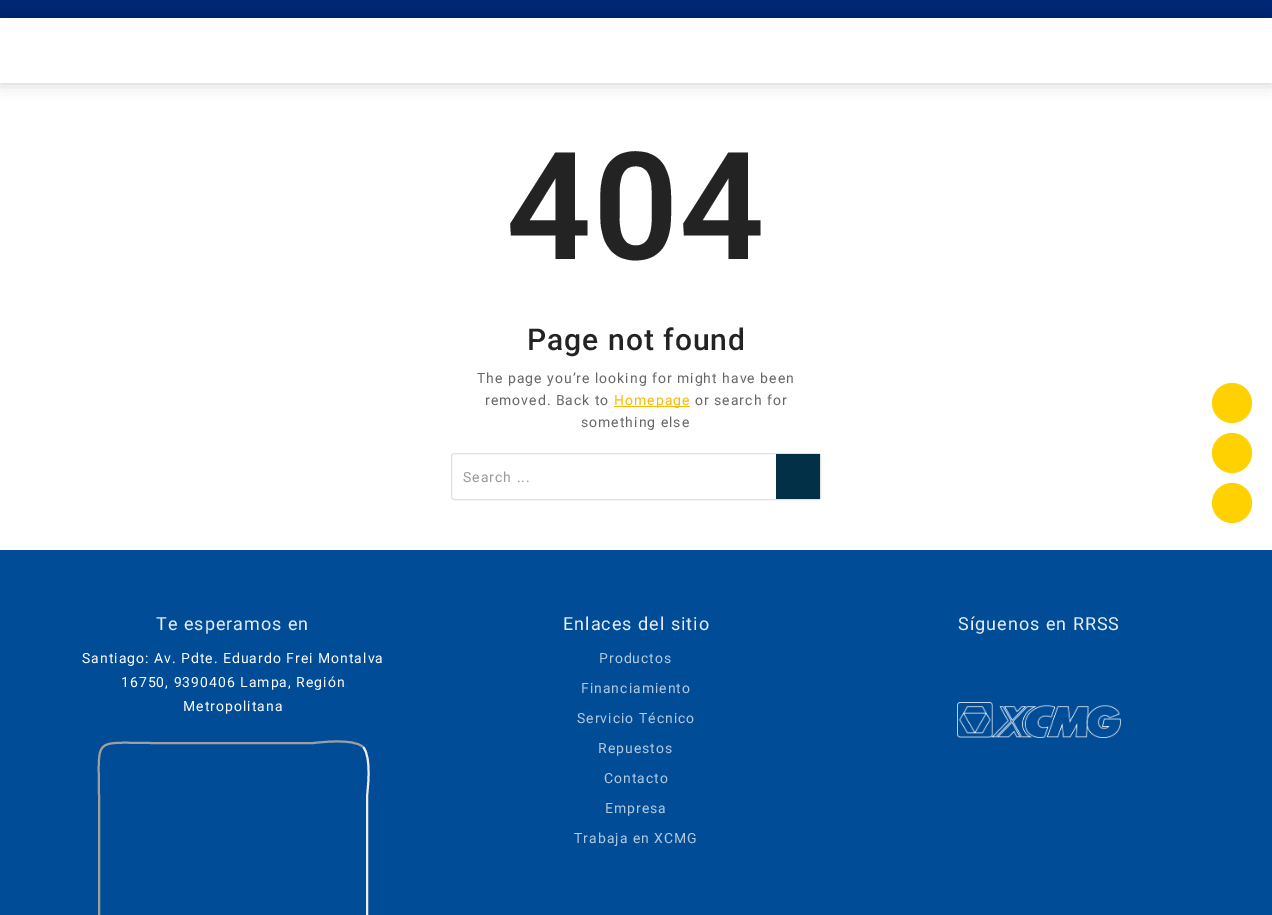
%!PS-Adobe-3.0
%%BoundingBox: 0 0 1272 915
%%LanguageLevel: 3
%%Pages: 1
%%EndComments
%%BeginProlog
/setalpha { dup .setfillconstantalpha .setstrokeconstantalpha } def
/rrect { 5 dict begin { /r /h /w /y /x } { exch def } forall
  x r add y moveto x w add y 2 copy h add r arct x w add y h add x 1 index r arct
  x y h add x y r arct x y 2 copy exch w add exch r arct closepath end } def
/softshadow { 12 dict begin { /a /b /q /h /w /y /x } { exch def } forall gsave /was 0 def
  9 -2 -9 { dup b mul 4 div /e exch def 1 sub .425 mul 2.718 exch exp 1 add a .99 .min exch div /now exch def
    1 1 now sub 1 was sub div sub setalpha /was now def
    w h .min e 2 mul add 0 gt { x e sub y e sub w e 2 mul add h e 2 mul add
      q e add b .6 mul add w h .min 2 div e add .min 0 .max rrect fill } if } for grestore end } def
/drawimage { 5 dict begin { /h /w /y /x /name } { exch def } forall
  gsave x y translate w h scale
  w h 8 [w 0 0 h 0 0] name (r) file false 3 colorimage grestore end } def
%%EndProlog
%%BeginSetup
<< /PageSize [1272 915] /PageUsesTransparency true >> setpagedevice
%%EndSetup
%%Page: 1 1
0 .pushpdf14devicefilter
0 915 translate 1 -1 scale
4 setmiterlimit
1 setgray
0 0 1272 915 rectfill
0 0.153 0.459 setrgbcolor
0 0 1272 18 rectfill
gsave
newpath 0 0 moveto 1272 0 lineto 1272 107 lineto 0 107 lineto closepath 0 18 moveto 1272 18 lineto 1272 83 lineto 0 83 lineto closepath eoclip newpath
0 setgray
0 18 1272 65 0 7.5 0.2 softshadow
grestore
0.988 0.722 0 setrgbcolor
614 406 76 1 rectfill
0.878 setgray
451.5 453.5 369 46 2.5 rrect stroke
0.008 0.188 0.278 setrgbcolor
776 454 44 45 rectfill
0 0.298 0.592 setrgbcolor
0 550 1272 365 rectfill
0.933 setgray
2 setlinewidth
newpath 363 747 moveto 372.5 757 367 794 367 797 curveto 367 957 lineto 367 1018.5 374.5 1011 313 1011 curveto 153 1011 lineto 150 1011 113 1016.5 103 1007 curveto stroke
0.624 setgray
newpath 103 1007 moveto 93.5 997 99 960 99 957 curveto 99 797 lineto 99 735.5 91.5 743 153 743 curveto 313 743 lineto 316 743 353 737.5 363 747 curveto stroke
(images/1.raw) 957 702 164 36 drawimage
1 0.82 0 setrgbcolor
newpath 1232 403 20 0 360 arc closepath fill
newpath 1232 453 20 0 360 arc closepath fill
newpath 1232 503 20 0 360 arc closepath fill
/Roboto-SemiBold [150 0 0 -150 0 0] selectfont
0.137 setgray
506 259 moveto 1 0 (404) ashow
/Roboto-Medium [30 0 0 -30 0 0] selectfont
527 350 moveto 1 0 (Page not found) ashow
/Roboto-Regular [14 0 0 -14 0 0] selectfont
0.4 setgray
477 383 moveto 1 0 (The page you’re looking for might have been) ashow
485 405 moveto 1 0 (removed. Back to) ashow
0.988 0.722 0 setrgbcolor
614 405 moveto 1 0 (Homepage) ashow
0.4 setgray
695 405 moveto 1 0 (or search for) ashow
581 427 moveto 1 0 (something else) ashow
0.6 setgray
463 482 moveto 1 0 (Search ...) ashow
/Roboto-Regular [18 0 0 -18 0 0] selectfont
0.902 0.929 0.961 setrgbcolor
156 630 moveto 1 0 (Te esperamos en) ashow
/Roboto-Regular [14 0 0 -14 0 0] selectfont
1 setgray
82 663 moveto 1 0 (Santiago: Av. Pdte. Eduardo Frei Montalva) ashow
121 687 moveto 1 0 (16750, 9390406 Lampa, Región) ashow
183 711 moveto 1 0 (Metropolitana) ashow
/Roboto-Regular [18 0 0 -18 0 0] selectfont
0.902 0.929 0.961 setrgbcolor
563 630 moveto 1 0 (Enlaces del sitio) ashow
/Roboto-Regular [14 0 0 -14 0 0] selectfont
0.702 0.788 0.878 setrgbcolor
599 663 moveto 1 0 (Productos) ashow
581 693 moveto 1 0 (Financiamiento) ashow
577 723 moveto 1 0 (Servicio Técnico) ashow
598 753 moveto 1 0 (Repuestos) ashow
604 783 moveto 1 0 (Contacto) ashow
605 813 moveto 1 0 (Empresa) ashow
574 843 moveto 1 0 (Trabaja en XCMG) ashow
/Roboto-Regular [18 0 0 -18 0 0] selectfont
0.902 0.929 0.961 setrgbcolor
958 630 moveto 1 0 (Síguenos en RRSS) ashow
.poppdf14devicefilter showpage
%%EOF
